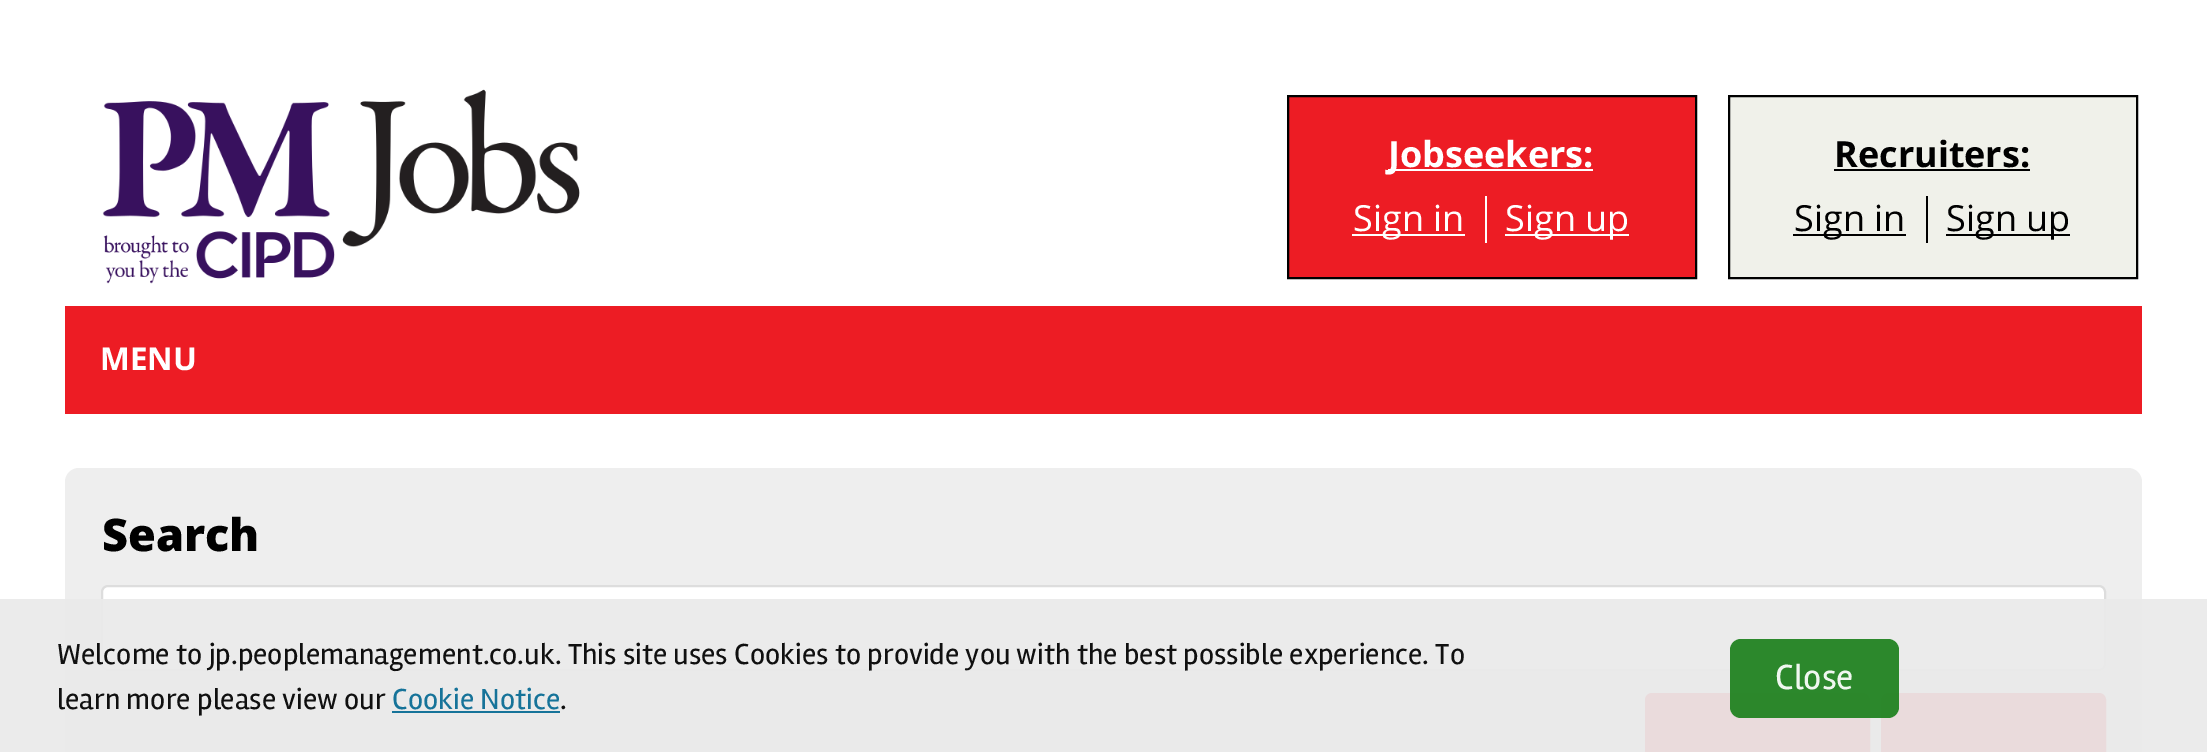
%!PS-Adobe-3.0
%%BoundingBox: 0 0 2207 752
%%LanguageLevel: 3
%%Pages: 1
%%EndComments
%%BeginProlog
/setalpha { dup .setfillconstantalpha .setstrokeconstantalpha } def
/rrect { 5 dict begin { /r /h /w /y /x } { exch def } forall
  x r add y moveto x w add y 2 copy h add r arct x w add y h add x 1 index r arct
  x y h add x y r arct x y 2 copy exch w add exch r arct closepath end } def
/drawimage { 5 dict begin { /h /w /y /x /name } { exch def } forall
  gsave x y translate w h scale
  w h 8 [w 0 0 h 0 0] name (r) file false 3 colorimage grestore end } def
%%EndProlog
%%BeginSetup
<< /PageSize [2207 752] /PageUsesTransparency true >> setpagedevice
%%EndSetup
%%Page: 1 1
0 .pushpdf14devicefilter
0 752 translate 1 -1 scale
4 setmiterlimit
1 setgray
0 0 2207 752 rectfill
(images/1.raw) 102 89 478 195 drawimage
0.929 0.11 0.141 setrgbcolor
newpath 1288 96 moveto 1696 96 lineto 1696 278 lineto 1288 278 lineto closepath gsave fill grestore
0 setgray
2 setlinewidth
stroke
1 setgray
1388 169 205 2 rectfill
1485 196 2 47 rectfill
1352 234 113 2 rectfill
1505 234 124 2 rectfill
0.941 0.945 0.918 setrgbcolor
newpath 1729 96 moveto 2137 96 lineto 2137 278 lineto 1729 278 lineto closepath gsave fill grestore
0 setgray
stroke
1834 169 196 2 rectfill
1926 196 2 47 rectfill
1793 234 113 2 rectfill
1946 234 124 2 rectfill
0.929 0.11 0.141 setrgbcolor
65 306 2077 108 rectfill
0.933 setgray
65 468 2077 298 14 rrect fill
1 setgray
102 586 2003 84 6 rrect gsave fill grestore
0.867 setgray
stroke
0.929 0.11 0.141 setrgbcolor
1646 694 223 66 6 rrect gsave fill grestore
stroke
1882 694 223 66 6 rrect gsave fill grestore
stroke
0.93 setalpha
0.918 setgray
0 599 2207 153 rectfill
1 setalpha
0.086 0.451 0.6 setrgbcolor
392 711 168 2 rectfill
0.93 setalpha
0.118 0.506 0.118 setrgbcolor
1730 639 169 79 11 rrect fill
/OpenSans-Bold [36 0 0 -36 0 0] selectfont
1 setalpha
1 setgray
1388 167 moveto (Jobseekers:) show
/OpenSans-Regular [36 0 0 -36 0 0] selectfont
1353 231 moveto (Sign in) show
1505 231 moveto (Sign up) show
/OpenSans-Bold [36 0 0 -36 0 0] selectfont
0 setgray
1834 167 moveto (Recruiters:) show
/OpenSans-Regular [36 0 0 -36 0 0] selectfont
1794 231 moveto (Sign in) show
1946 231 moveto (Sign up) show
/OpenSans-Bold [31.5 0 0 -31.5 0 0] selectfont
1 setgray
100 370 moveto (MENU) show
/OpenSans-ExtraBold [45 0 0 -45 0 0] selectfont
0 setgray
102 551 moveto (Search) show
/Rambla-Regular [29.95 0 0 -29.95 0 0] selectfont
0.063 setgray
57 664 moveto (Welcome to jp.peoplemanagement.co.uk. This site uses Cookies to provide you with the best possible experience. To) show
57 709 moveto (learn more please view our) show
0.086 0.451 0.6 setrgbcolor
392 709 moveto (Cookie Notice) show
0.063 setgray
560 709 moveto (.) show
/Rambla-Regular [36 0 0 -36 0 0] selectfont
0.941 0.969 0.941 setrgbcolor
1775 689 moveto (Close) show
.poppdf14devicefilter showpage
%%EOF
